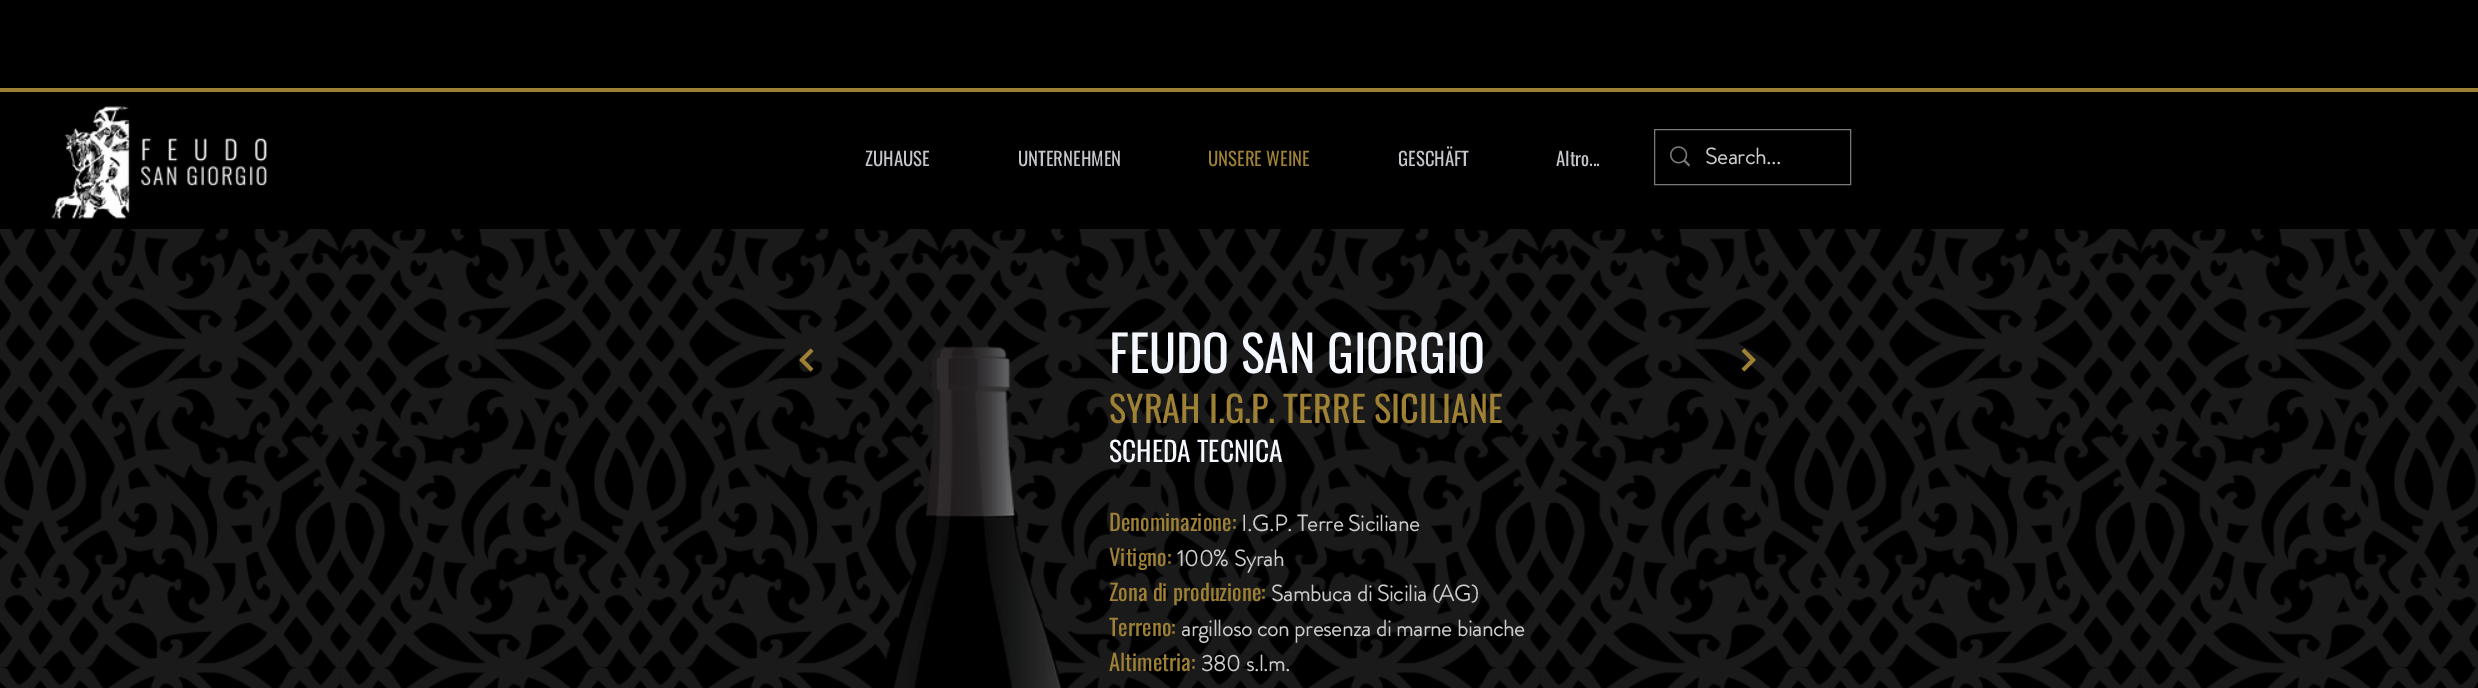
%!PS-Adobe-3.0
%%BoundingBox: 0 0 2478 688
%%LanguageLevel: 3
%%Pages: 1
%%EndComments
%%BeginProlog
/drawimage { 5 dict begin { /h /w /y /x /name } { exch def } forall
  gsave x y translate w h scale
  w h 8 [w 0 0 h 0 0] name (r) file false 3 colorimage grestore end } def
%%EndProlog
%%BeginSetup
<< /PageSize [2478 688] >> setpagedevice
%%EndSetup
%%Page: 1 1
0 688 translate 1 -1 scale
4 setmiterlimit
0 setgray
0 0 2478 688 rectfill
(images/1.raw) 51 106 217 113 drawimage
0.62 0.506 0.208 setrgbcolor
0 88 2478 4 rectfill
0.478 setgray
1654.5 129.5 196 55 rectstroke
(images/2.raw) 1670 146 20 21 drawimage
(images/6.raw) 0 229 2478 459 drawimage
(images/3.raw) 878 346 184 342 drawimage
(images/4.raw) 799 348 15 24 drawimage
(images/5.raw) 1741 348 15 24 drawimage
/Oswald-Regular [18.75 0 0 -18.75 0 0] selectfont
0.769 0.776 0.8 setrgbcolor
865 166 moveto (ZUHAUSE) show
1018 166 moveto (UNTERNEHMEN) show
0.62 0.506 0.208 setrgbcolor
1208 166 moveto (UNSERE WEINE) show
0.769 0.776 0.8 setrgbcolor
1398 166 moveto (GESCHÄFT) show
1556 166 moveto (Altro...) show
/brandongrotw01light-Bold [22.5 0 0 -22.5 0 0] selectfont
0.8 setgray
1705 164 moveto (Search...) show
/Oswald-Regular [50 0 0 -50 0 0] selectfont
0.961 0.969 1 setrgbcolor
1109 373 moveto (FEUDO SAN GIORGIO) show
/Oswald-Regular [36.25 0 0 -36.25 0 0] selectfont
0.62 0.506 0.208 setrgbcolor
1109 423 moveto (SYRAH I.G.P. TERRE SICILIANE) show
/Oswald-Regular [27.5 0 0 -27.5 0 0] selectfont
0.961 0.969 1 setrgbcolor
1109 462 moveto (SCHEDA TECNICA) show
/Oswald-Regular [22.5 0 0 -22.5 0 0] selectfont
0.62 0.506 0.208 setrgbcolor
1109 531 moveto (Denominazione:) show
/brandongrotw01light-Bold [22.5 0 0 -22.5 0 0] selectfont
0.8 setgray
1241 531 moveto (I.G.P. Terre Siciliane) show
/Oswald-Regular [22.5 0 0 -22.5 0 0] selectfont
0.62 0.506 0.208 setrgbcolor
1109 566 moveto (Vitigno:) show
/brandongrotw01light-Bold [22.5 0 0 -22.5 0 0] selectfont
0.8 setgray
1177 566 moveto (100% Syrah) show
/Oswald-Regular [22.5 0 0 -22.5 0 0] selectfont
0.62 0.506 0.208 setrgbcolor
1109 601 moveto (Zona di produzione:) show
/brandongrotw01light-Bold [22.5 0 0 -22.5 0 0] selectfont
0.8 setgray
1271 601 moveto (Sambuca di Sicilia \(AG\)) show
/Oswald-Regular [22.5 0 0 -22.5 0 0] selectfont
0.62 0.506 0.208 setrgbcolor
1109 636 moveto (Terreno:) show
/brandongrotw01light-Bold [22.5 0 0 -22.5 0 0] selectfont
0.8 setgray
1181 636 moveto (argilloso con presenza di marne bianche) show
/Oswald-Regular [22.5 0 0 -22.5 0 0] selectfont
0.62 0.506 0.208 setrgbcolor
1109 671 moveto (Altimetria:) show
/brandongrotw01light-Bold [22.5 0 0 -22.5 0 0] selectfont
0.8 setgray
1201 671 moveto (380 s.l.m.) show
showpage
%%EOF
